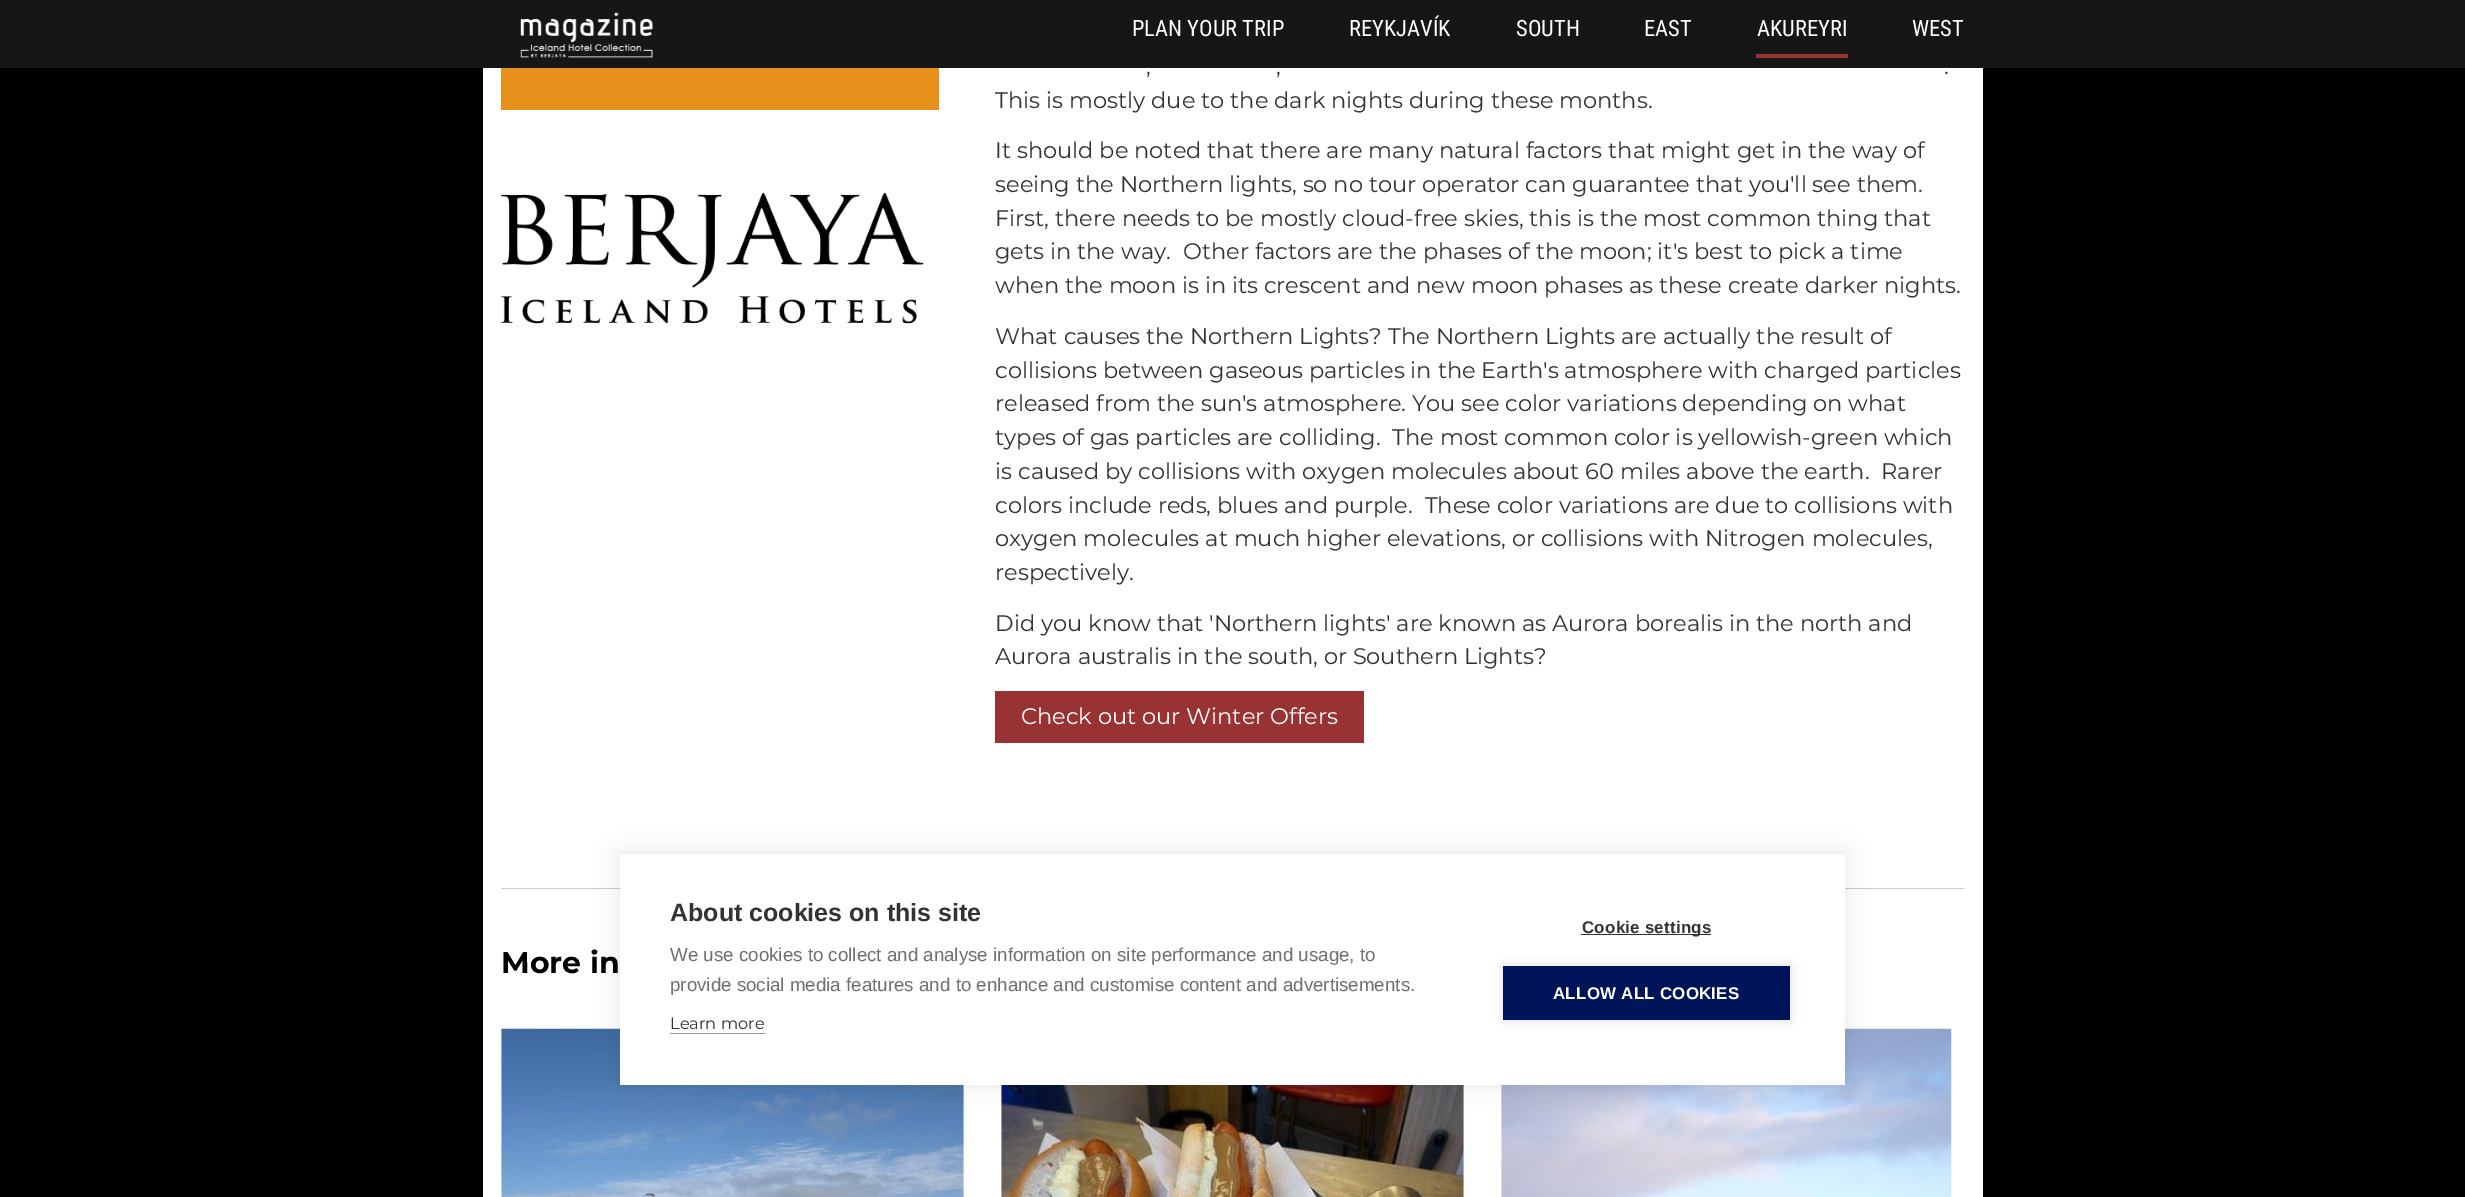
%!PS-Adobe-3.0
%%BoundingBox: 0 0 2465 1197
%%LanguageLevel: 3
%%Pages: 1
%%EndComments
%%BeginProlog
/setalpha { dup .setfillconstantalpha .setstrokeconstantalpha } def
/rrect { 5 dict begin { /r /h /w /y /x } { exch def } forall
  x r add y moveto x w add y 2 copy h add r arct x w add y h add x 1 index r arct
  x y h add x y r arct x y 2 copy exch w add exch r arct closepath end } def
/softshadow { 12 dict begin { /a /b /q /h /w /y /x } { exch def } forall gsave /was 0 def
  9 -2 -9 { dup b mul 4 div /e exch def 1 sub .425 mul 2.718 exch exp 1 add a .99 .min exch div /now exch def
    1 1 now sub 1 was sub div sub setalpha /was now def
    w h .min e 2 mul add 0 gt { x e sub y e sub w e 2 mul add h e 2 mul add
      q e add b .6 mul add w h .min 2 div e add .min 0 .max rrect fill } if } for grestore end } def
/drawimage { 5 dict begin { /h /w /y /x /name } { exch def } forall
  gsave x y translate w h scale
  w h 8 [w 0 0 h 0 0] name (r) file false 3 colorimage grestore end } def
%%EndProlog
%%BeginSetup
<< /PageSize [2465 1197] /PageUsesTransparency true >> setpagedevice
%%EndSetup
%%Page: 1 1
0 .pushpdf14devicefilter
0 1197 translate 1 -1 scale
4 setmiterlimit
0 setgray
0 0 2465 1197 rectfill
0.086 setgray
0 0 2465 68 rectfill
(images/1.raw) 520 12 133 46 drawimage
0.6 0.2 0.2 setrgbcolor
1756 54 92 4 rectfill
1 setgray
483 68 1500 1129 rectfill
0.902 0.561 0.102 setrgbcolor
501 68 438 42 rectfill
(images/2.raw) 501 192 423 132 drawimage
0.6 0.2 0.2 setrgbcolor
995 691 369 52 rectfill
0.8 setgray
501 888 1463 1 rectfill
(images/3.raw) 501 1028 463 169 drawimage
(images/4.raw) 1001 1085 463 112 drawimage
(images/5.raw) 1501 1028 451 169 drawimage
0 setgray
620 854 1225 231 0 12.5 0.1 softshadow
1 setgray
620 854 1225 231 rectfill
0.6 setgray
670 1033 95 1 rectfill
0.2 setgray
1581 934 130 1 rectfill
0 setgray
1503 966 287 54 0 6 0.12 softshadow
0 0.078 0.349 setrgbcolor
1503 966 287 54 rectfill
/RobotoCondensed-Regular [22.5 0 0 -22.5 0 0] selectfont
1 setgray
1132 36 moveto (PLAN YOUR TRIP) show
1349 36 moveto (REYKJAVÍK) show
1516 36 moveto (SOUTH) show
1644 36 moveto (EAST) show
1757 36 moveto (AKUREYRI) show
1912 36 moveto (WEST) show
/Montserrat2-Thin [22.5 0 0 -22.5 0 0] selectfont
0.2 setgray
1146 74 moveto (,) show
1276 74 moveto (,) show
1944 74 moveto (.) show
995 108 moveto (This is mostly due to the dark nights during these months.) show
995 158 moveto (It should be noted that there are many natural factors that might get in the way of) show
995 192 moveto (seeing the Northern lights, so no tour operator can guarantee that you'll see them.) show
995 226 moveto (First, there needs to be mostly cloud-free skies, this is the most common thing that) show
995 259 moveto (gets in the way.  Other factors are the phases of the moon; it's best to pick a time) show
995 293 moveto (when the moon is in its crescent and new moon phases as these create darker nights.) show
995 344 moveto (What causes the Northern Lights? The Northern Lights are actually the result of) show
995 378 moveto (collisions between gaseous particles in the Earth's atmosphere with charged particles) show
995 411 moveto (released from the sun's atmosphere. You see color variations depending on what) show
995 445 moveto (types of gas particles are colliding.  The most common color is yellowish-green which) show
995 479 moveto (is caused by collisions with oxygen molecules about 60 miles above the earth.  Rarer) show
995 513 moveto (colors include reds, blues and purple.  These color variations are due to collisions with) show
995 546 moveto (oxygen molecules at much higher elevations, or collisions with Nitrogen molecules,) show
995 580 moveto (respectively.) show
995 631 moveto (Did you know that 'Northern lights' are known as Aurora borealis in the north and) show
995 664 moveto (Aurora australis in the south, or Southern Lights?) show
1 setgray
1021 724 moveto (Check out our Winter Offers) show
/Montserrat-Thin [30 0 0 -30 0 0] selectfont
0 setgray
501 973 moveto (More in) show
/LiberationSans-Bold [25 0 0 -25 0 0] selectfont
0.2 setgray
670 921 moveto (About cookies on this site) show
/LiberationSans-Regular [18.75 0 0 -18.75 0 0] selectfont
0.439 setgray
670 961 moveto (We use cookies to collect and analyse information on site performance and usage, to) show
670 991 moveto (provide social media features and to enhance and customise content and advertisements.) show
/Montserrat2-Thin [16.25 0 0 -16.25 0 0] selectfont
0.2 setgray
670 1029 moveto (Learn more) show
/LiberationSans-Bold [16.9 0 0 -16.9 0 0] selectfont
1582 933 moveto 0.25 0 (Cookie settings) ashow
1 setgray
1553 999 moveto 0.25 0 (ALLOW ALL COOKIES) ashow
.poppdf14devicefilter showpage
%%EOF
